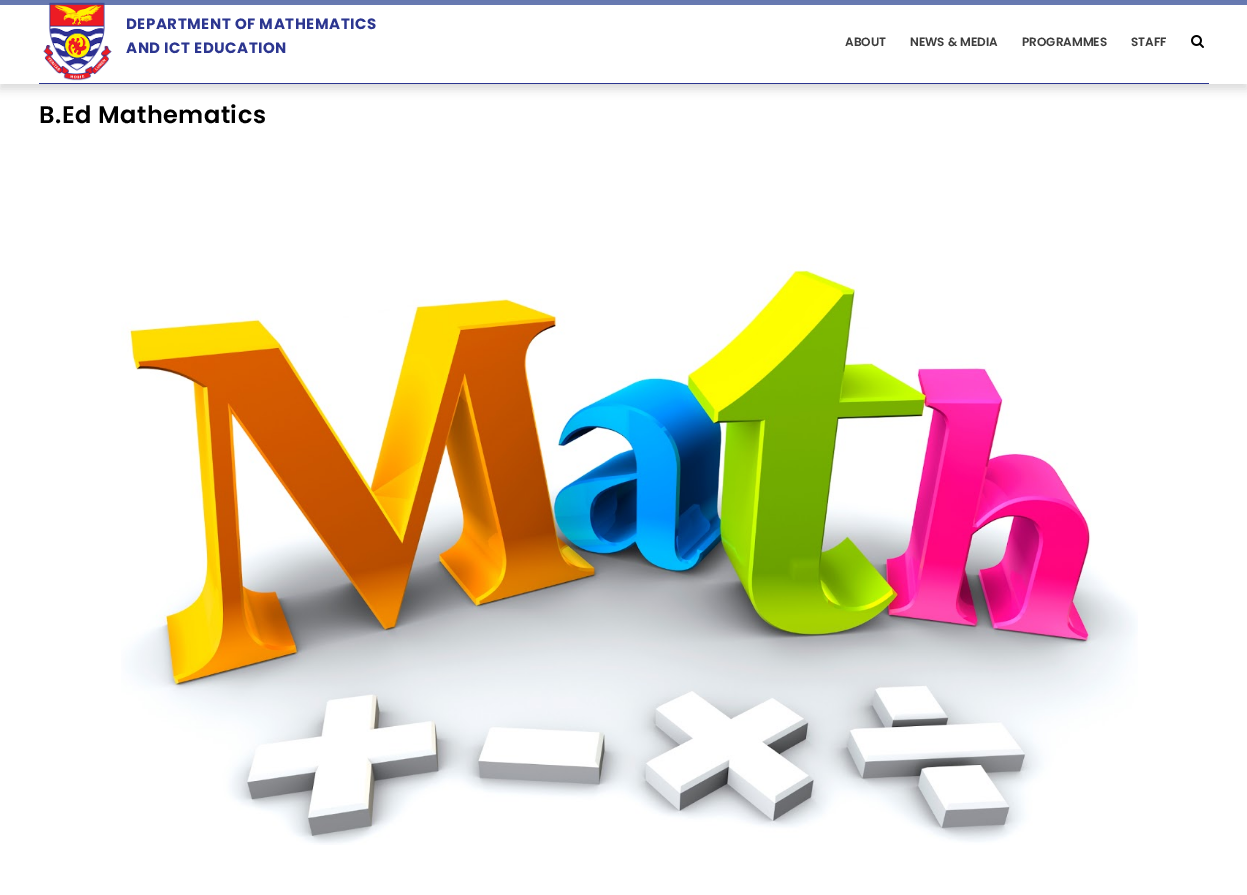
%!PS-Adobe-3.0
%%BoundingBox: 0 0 1247 895
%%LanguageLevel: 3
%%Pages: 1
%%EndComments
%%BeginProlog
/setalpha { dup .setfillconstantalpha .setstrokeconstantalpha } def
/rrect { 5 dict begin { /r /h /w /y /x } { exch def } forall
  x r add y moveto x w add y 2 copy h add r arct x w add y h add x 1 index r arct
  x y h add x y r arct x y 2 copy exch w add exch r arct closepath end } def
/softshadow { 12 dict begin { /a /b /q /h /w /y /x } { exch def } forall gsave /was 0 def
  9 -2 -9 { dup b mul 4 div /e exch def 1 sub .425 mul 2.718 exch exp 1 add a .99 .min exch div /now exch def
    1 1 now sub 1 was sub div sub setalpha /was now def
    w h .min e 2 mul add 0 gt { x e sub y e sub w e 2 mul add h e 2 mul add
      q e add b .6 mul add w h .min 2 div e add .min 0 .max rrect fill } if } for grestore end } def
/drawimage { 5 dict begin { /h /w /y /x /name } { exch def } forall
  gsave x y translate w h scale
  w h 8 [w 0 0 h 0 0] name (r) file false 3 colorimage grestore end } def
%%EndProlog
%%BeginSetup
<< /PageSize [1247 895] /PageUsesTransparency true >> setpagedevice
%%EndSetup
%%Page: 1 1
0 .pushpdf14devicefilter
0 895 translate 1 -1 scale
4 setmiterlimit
1 setgray
0 0 1247 895 rectfill
gsave
newpath 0 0 moveto 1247 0 lineto 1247 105 lineto 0 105 lineto closepath 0 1 moveto 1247 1 lineto 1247 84 lineto 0 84 lineto closepath eoclip newpath
0 setgray
0 6 1247 83 0 5 0.15 softshadow
grestore
(images/1.raw) 43 2 69 79 drawimage
0.76 setalpha
0.216 0.31 0.6 setrgbcolor
0 0 1247 5 rectfill
1 setalpha
0.173 0.212 0.565 setrgbcolor
39 83 1170 1 rectfill
(images/2.raw) 1191 35 13 13 drawimage
(images/3.raw) 121 264 1017 581 drawimage
/Poppins-Bold [15 0 0 -15 0 0] selectfont
126 29 moveto 0.5 0 (DEPARTMENT OF MATHEMATICS) ashow
126 53 moveto 0.5 0 (AND ICT EDUCATION) ashow
/Poppins-SemiBold [12 0 0 -12 0 0] selectfont
0.239 setgray
845 46 moveto (ABOUT) show
910 46 moveto (NEWS & MEDIA) show
1022 46 moveto (PROGRAMMES) show
1131 46 moveto (STAFF) show
/Poppins-SemiBold [24 0 0 -24 0 0] selectfont
0 setgray
39 123 moveto 0.5 0 (B.Ed Mathematics) ashow
.poppdf14devicefilter showpage
%%EOF
